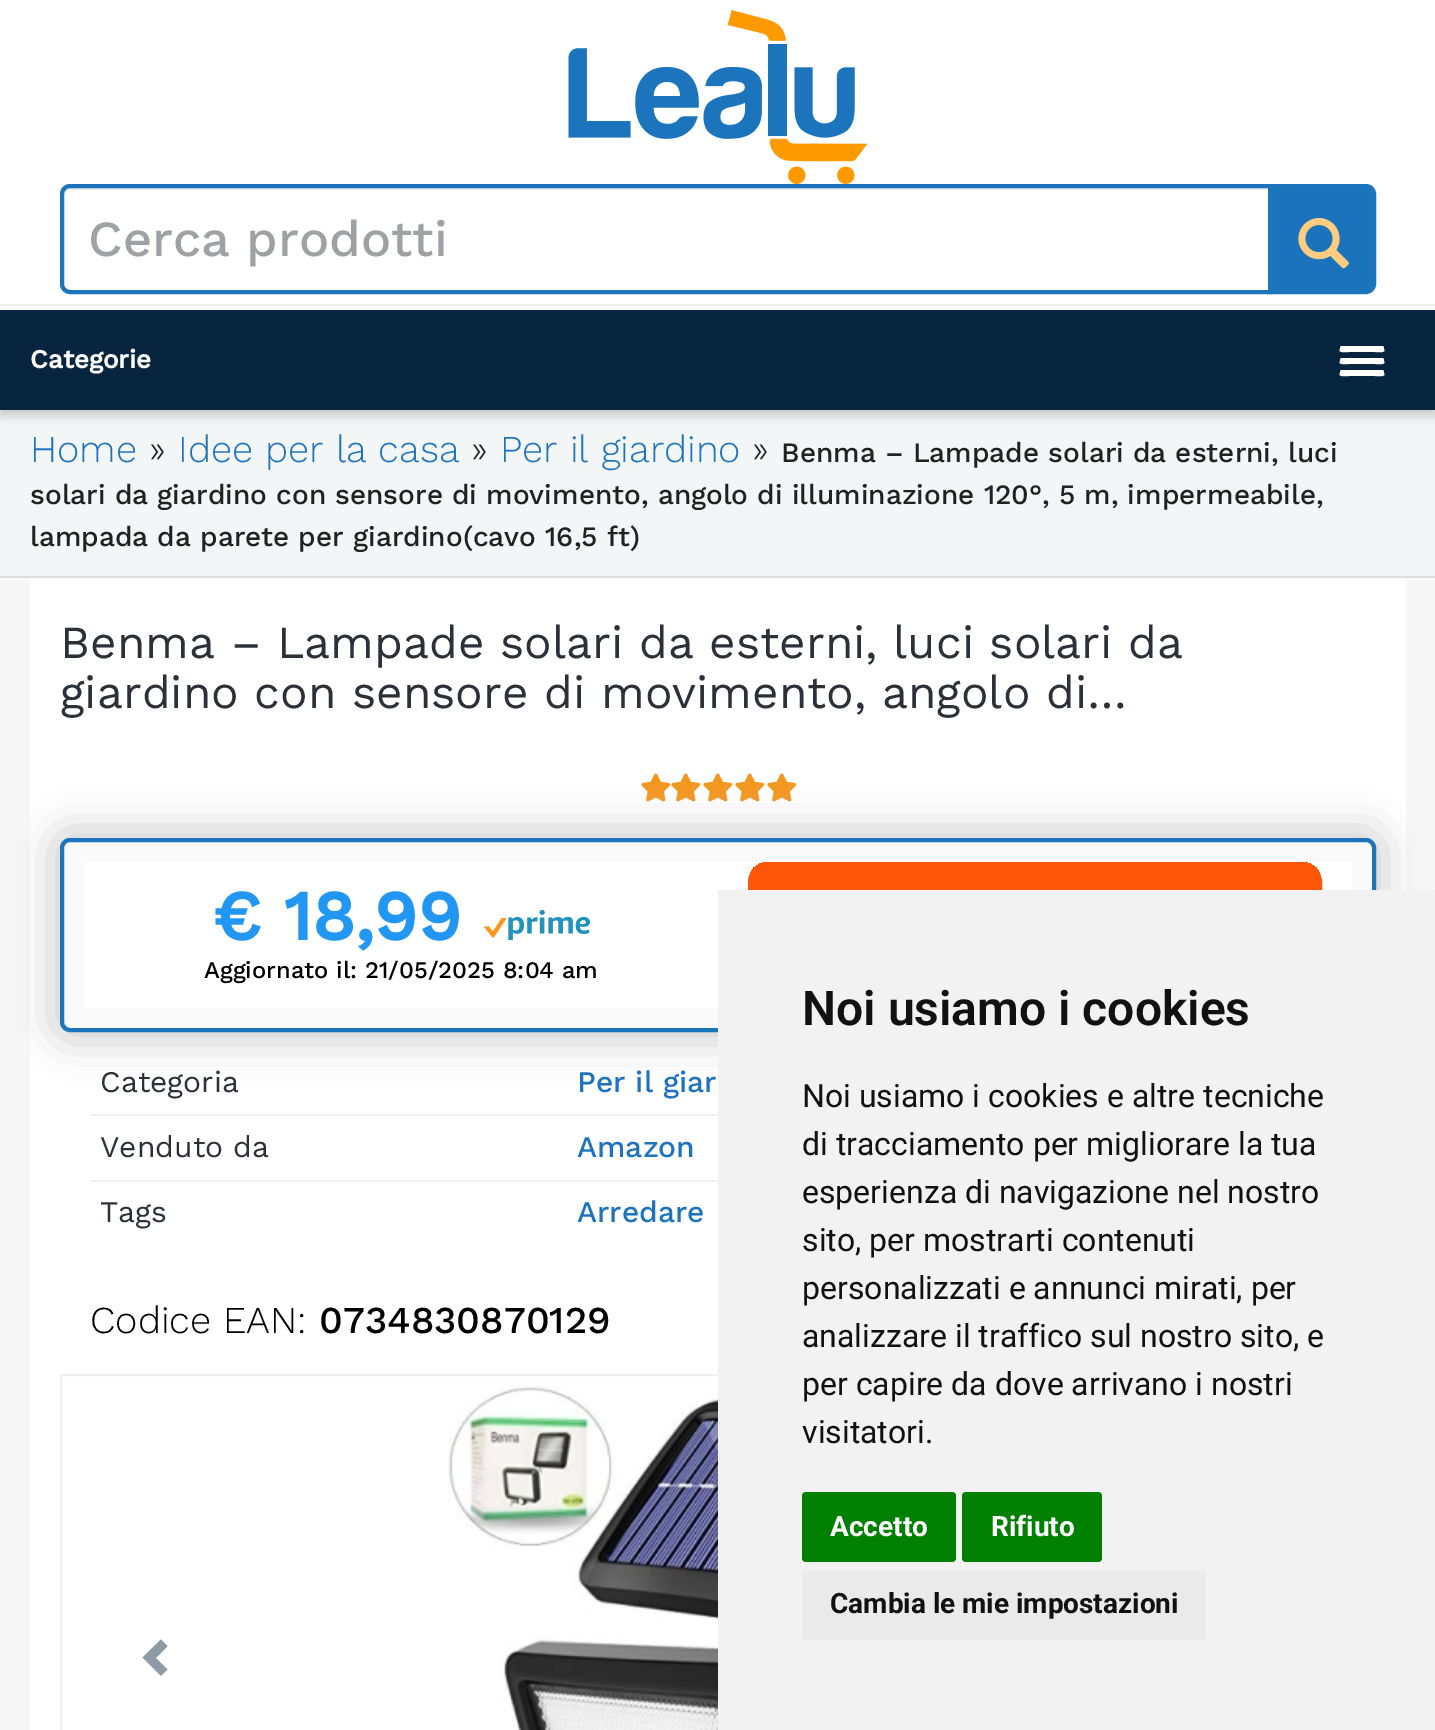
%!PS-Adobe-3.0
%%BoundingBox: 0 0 1435 1730
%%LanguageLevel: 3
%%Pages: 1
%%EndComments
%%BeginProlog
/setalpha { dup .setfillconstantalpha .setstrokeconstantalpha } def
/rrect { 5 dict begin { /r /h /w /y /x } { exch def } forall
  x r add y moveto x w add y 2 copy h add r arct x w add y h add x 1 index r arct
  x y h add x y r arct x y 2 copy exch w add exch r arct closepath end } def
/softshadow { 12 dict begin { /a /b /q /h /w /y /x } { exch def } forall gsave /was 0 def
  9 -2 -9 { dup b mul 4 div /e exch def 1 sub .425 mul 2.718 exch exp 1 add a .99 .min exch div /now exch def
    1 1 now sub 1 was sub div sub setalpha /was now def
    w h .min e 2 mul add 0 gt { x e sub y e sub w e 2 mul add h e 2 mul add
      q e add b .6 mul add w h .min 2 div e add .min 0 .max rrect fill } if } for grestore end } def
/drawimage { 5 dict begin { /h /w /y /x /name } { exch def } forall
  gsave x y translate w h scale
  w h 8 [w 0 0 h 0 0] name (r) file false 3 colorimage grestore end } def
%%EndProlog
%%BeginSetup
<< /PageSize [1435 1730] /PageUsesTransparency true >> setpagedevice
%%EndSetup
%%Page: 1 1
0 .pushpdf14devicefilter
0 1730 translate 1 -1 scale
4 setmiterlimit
1 setgray
0 0 1435 1730 rectfill
0.941 setgray
0 304 1435 2 rectfill
(images/1.raw) 568 10 300 174 drawimage
0.925 setgray
newpath 70 190 moveto 1268 190 lineto 1268 188 lineto 70 188 lineto 67 188 64 191 64 194 curveto 64 196 lineto 64 193 67 190 70 190 curveto closepath fill
0.11 0.459 0.737 setrgbcolor
4 setlinewidth
newpath 70 186 moveto 1270 186 lineto 1270 292 lineto 70 292 lineto 65.5 292 62 288.5 62 284 curveto 62 194 lineto 62 189.5 65.5 186 70 186 curveto closepath stroke
0.106 0.455 0.733 setrgbcolor
newpath 1272 186 moveto 1366 186 lineto 1370.5 186 1374 189.5 1374 194 curveto 1374 284 lineto 1374 288.5 1370.5 292 1366 292 curveto 1272 292 lineto closepath gsave fill grestore
0.11 0.459 0.737 setrgbcolor
stroke
(images/2.raw) 1298 218 51 51 drawimage
0.953 0.965 0.969 setrgbcolor
0 410 1435 166 rectfill
0.788 setgray
0 316 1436 100 0 5 1 softshadow
0.027 0.145 0.243 setrgbcolor
0 310 1435 100 rectfill
1 setgray
newpath 1340 349 moveto 1338 353 1344 352 1349 352 curveto 1375 352 lineto 1380 352 1386 353 1384 349 curveto 1382 350 lineto 1342 350 lineto closepath fill
1340 346 44 4 2 rrect fill
newpath 1340 361 moveto 1338 365 1344 364 1349 364 curveto 1375 364 lineto 1380 364 1386 365 1384 361 curveto 1382 362 lineto 1342 362 lineto closepath fill
1340 358 44 4 2 rrect fill
newpath 1340 373 moveto 1338 377 1344 376 1349 376 curveto 1375 376 lineto 1380 376 1386 377 1384 373 curveto 1382 374 lineto 1342 374 lineto closepath fill
1340 370 44 4 2 rrect fill
0.867 setgray
0 576 1435 2 rectfill
0.969 setgray
0 578 1435 1152 rectfill
1 setgray
30 578 1376 1152 rectfill
(images/3.raw) 641 773 30 29 drawimage
(images/3.raw) 671 773 30 29 drawimage
(images/3.raw) 703 773 30 29 drawimage
(images/3.raw) 735 773 30 29 drawimage
(images/3.raw) 767 773 30 29 drawimage
0.82 setgray
50 828 1336 214 20 20 1 softshadow
0.98 setgray
62 840 1312 190 8 rrect gsave fill grestore
0.11 0.459 0.737 setrgbcolor
stroke
1 setgray
84 862 1268 146 rectfill
(images/4.raw) 484 910 106 30 drawimage
gsave
748 862 574 108 20 rrect clip newpath
1 0.341 0.027 setrgbcolor
750 862 570 28 rectfill
grestore
1 0.341 0.027 setrgbcolor
2 setlinewidth
749 863 572 106 19 rrect stroke
0.941 setgray
90 1114 628 2 rectfill
90 1180 628 2 rectfill
61 1375 1314 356 rectstroke
(images/5.raw) 448 1386 270 344 drawimage
0.553 0.608 0.651 setrgbcolor
newpath 167.5 1646 moveto 156 1658 lineto 167.5 1669.5 lineto 161 1676 lineto 142.5 1657.5 lineto 161 1639.5 lineto closepath fill
0.949 setgray
718 890 717 840 rectfill
0 0.502 0 setrgbcolor
802 1492 154 70 4 rrect fill
962 1492 140 70 4 rrect fill
0.918 setgray
802 1570 404 70 4 rrect fill
/WorkSans-Medium [50.5 0 0 -50.5 0 0] selectfont
0.624 0.635 0.647 setrgbcolor
88 256 moveto (Cerca prodotti) show
/WorkSans-Bold [26 0 0 -26 0 0] selectfont
1 setgray
30 368 moveto (Categorie) show
/WorkSans-Light [38 0 0 -38 0 0] selectfont
0.118 0.451 0.745 setrgbcolor
30 462 moveto (Home) show
0.129 setgray
149 462 moveto (») show
0.118 0.451 0.745 setrgbcolor
178 462 moveto (Idee per la casa) show
0.129 setgray
471 462 moveto (») show
0.118 0.451 0.745 setrgbcolor
500 462 moveto (Per il giardino) show
0.129 setgray
752 462 moveto (») show
/WorkSans-Medium [28 0 0 -28 0 0] selectfont
781 462 moveto (Benma – Lampade solari da esterni, luci) show
30 504 moveto (solari da giardino con sensore di movimento, angolo di illuminazione 120°, 5 m, impermeabile,) show
30 546 moveto (lampada da parete per giardino\(cavo 16,5 ft\)) show
/WorkSans-Regular [46 0 0 -46 0 0] selectfont
0.169 0.192 0.224 setrgbcolor
60 658 moveto (Benma – Lampade solari da esterni, luci solari da) show
60 708 moveto (giardino con sensore di movimento, angolo di…) show
/WorkSans-Bold [70 0 0 -70 0 0] selectfont
0.129 0.588 0.953 setrgbcolor
212 940 moveto (€ 18,99) show
/WorkSans-Medium [23.75 0 0 -23.75 0 0] selectfont
0 setgray
204 978 moveto (Aggiornato il: 21/05/2025 8:04 am) show
/WorkSans-Regular [30 0 0 -30 0 0] selectfont
0.169 0.192 0.224 setrgbcolor
100 1092 moveto (Categoria) show
/WorkSans-Medium [30 0 0 -30 0 0] selectfont
0.118 0.451 0.745 setrgbcolor
577 1092 moveto (Per il giar) show
/WorkSans-Regular [30 0 0 -30 0 0] selectfont
0.169 0.192 0.224 setrgbcolor
100 1157 moveto (Venduto da) show
/WorkSans-Medium [30 0 0 -30 0 0] selectfont
0.118 0.451 0.745 setrgbcolor
577 1157 moveto (Amazon) show
/WorkSans-Regular [30 0 0 -30 0 0] selectfont
0.169 0.192 0.224 setrgbcolor
100 1222 moveto (Tags) show
/WorkSans-Medium [30 0 0 -30 0 0] selectfont
0.118 0.451 0.745 setrgbcolor
577 1222 moveto (Arredare) show
/WorkSans-Light [38 0 0 -38 0 0] selectfont
0 setgray
90 1333 moveto (Codice EAN:) show
/WorkSans-Medium [38 0 0 -38 0 0] selectfont
319 1333 moveto (0734830870129) show
/Roboto-SemiBold [48 0 0 -48 0 0] selectfont
0.067 setgray
802 1025 moveto (Noi usiamo i cookies) show
/Roboto-Regular [32 0 0 -32 0 0] selectfont
802 1107 moveto (Noi usiamo i cookies e altre tecniche) show
802 1155 moveto (di tracciamento per migliorare la tua) show
802 1203 moveto (esperienza di navigazione nel nostro) show
802 1251 moveto (sito, per mostrarti contenuti) show
802 1299 moveto (personalizzati e annunci mirati, per) show
802 1347 moveto (analizzare il traffico sul nostro sito, e) show
802 1395 moveto (per capire da dove arrivano i nostri) show
802 1443 moveto (visitatori.) show
/Roboto-Bold [28 0 0 -28 0 0] selectfont
1 setgray
830 1536 moveto (Accetto) show
991 1536 moveto (Rifiuto) show
0.067 setgray
830 1613 moveto (Cambia le mie impostazioni) show
.poppdf14devicefilter showpage
%%EOF
